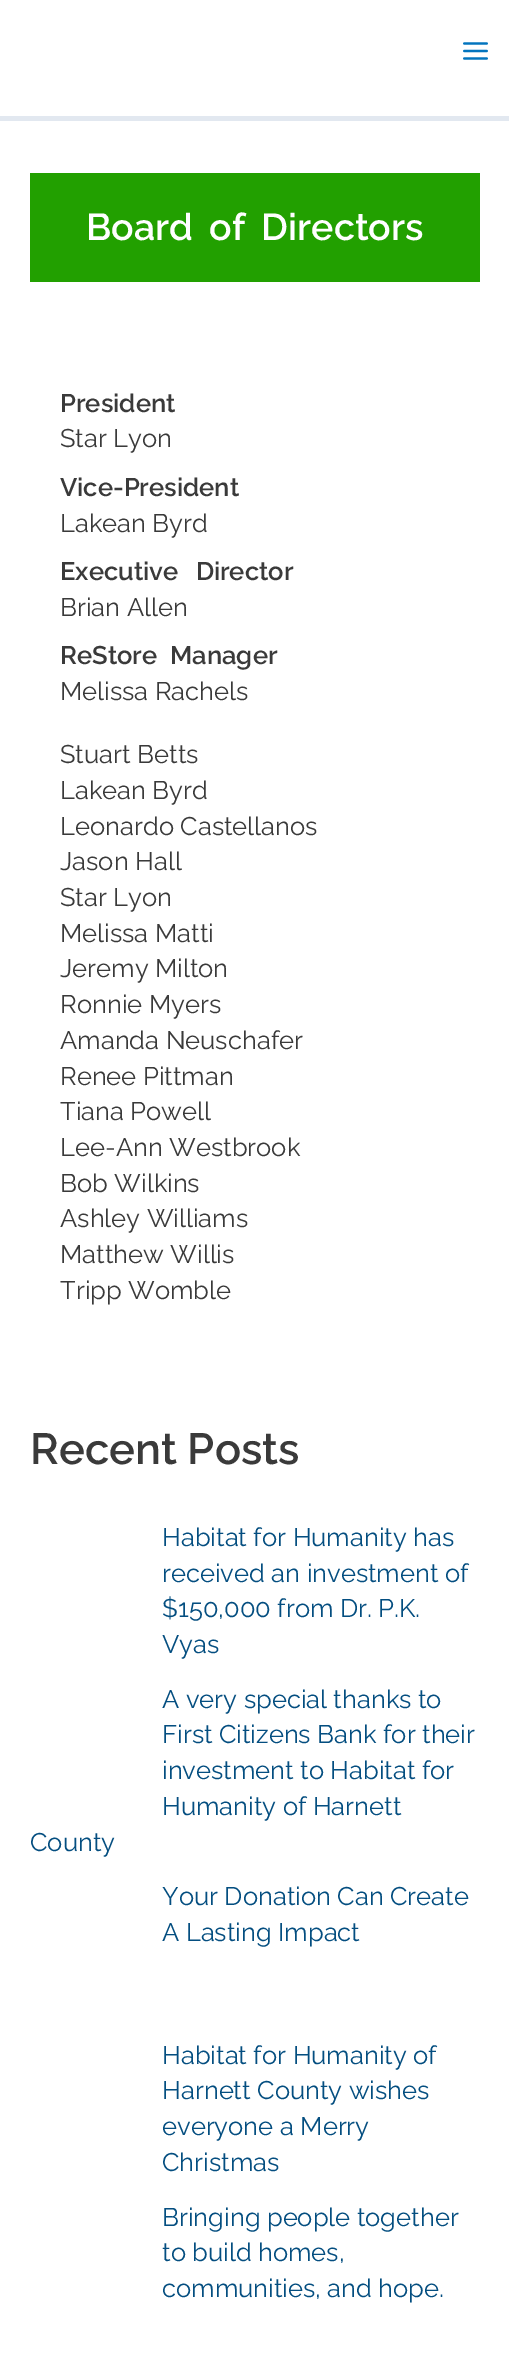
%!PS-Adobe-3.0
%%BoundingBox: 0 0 509 2361
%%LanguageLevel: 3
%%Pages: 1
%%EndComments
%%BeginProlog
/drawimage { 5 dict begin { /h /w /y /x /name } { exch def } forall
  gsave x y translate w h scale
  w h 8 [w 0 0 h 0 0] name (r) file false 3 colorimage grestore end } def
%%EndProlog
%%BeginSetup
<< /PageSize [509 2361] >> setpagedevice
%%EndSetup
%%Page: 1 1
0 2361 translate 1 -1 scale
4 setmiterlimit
1 setgray
0 0 509 2361 rectfill
0.886 0.91 0.941 setrgbcolor
0 116 509 5 rectfill
(images/1.raw) 463 42 25 18 drawimage
0.133 0.627 0 setrgbcolor
30 173 450 109 rectfill
/Raleway-SemiBold [37.5 0 0 -37.5 0 0] selectfont
1 setgray
86 240 moveto 7 0 32 (Board of Directors) widthshow
/Raleway-SemiBold [25.5 0 0 -25.5 0 0] selectfont
0.227 setgray
60 412 moveto (President) show
/Raleway-Regular [25.5 0 0 -25.5 0 0] selectfont
60 447 moveto (Star Lyon) show
/Raleway-SemiBold [25.5 0 0 -25.5 0 0] selectfont
60 496 moveto (Vice-President) show
/Raleway-Regular [25.5 0 0 -25.5 0 0] selectfont
60 532 moveto (Lakean Byrd) show
/Raleway-SemiBold [25.5 0 0 -25.5 0 0] selectfont
60 580 moveto 11 0 32 (Executive Director) widthshow
/Raleway-Regular [25.5 0 0 -25.5 0 0] selectfont
60 616 moveto (Brian Allen) show
/Raleway-SemiBold [25.5 0 0 -25.5 0 0] selectfont
60 664 moveto 7 0 32 (ReStore Manager) widthshow
/Raleway-Regular [25.5 0 0 -25.5 0 0] selectfont
60 700 moveto (Melissa Rachels) show
60 763 moveto (Stuart Betts) show
60 799 moveto (Lakean Byrd) show
60 835 moveto (Leonardo Castellanos) show
60 870 moveto (Jason Hall) show
60 906 moveto (Star Lyon) show
60 942 moveto (Melissa Matti) show
60 977 moveto (Jeremy Milton) show
60 1013 moveto (Ronnie Myers) show
60 1049 moveto (Amanda Neuschafer) show
60 1085 moveto (Renee Pittman) show
60 1120 moveto (Tiana Powell) show
60 1156 moveto (Lee-Ann Westbrook) show
60 1192 moveto (Bob Wilkins) show
60 1227 moveto (Ashley Williams) show
60 1263 moveto (Matthew Willis) show
60 1299 moveto (Tripp Womble) show
/Raleway-SemiBold [43.5 0 0 -43.5 0 0] selectfont
30 1464 moveto (Recent Posts) show
/Raleway-Regular [25.5 0 0 -25.5 0 0] selectfont
0.016 0.306 0.502 setrgbcolor
162 1546 moveto (Habitat for Humanity has) show
162 1582 moveto (received an investment of) show
162 1617 moveto ($150,000 from Dr. P.K.) show
162 1653 moveto (Vyas) show
162 1708 moveto (A very special thanks to) show
162 1743 moveto (First Citizens Bank for their) show
162 1779 moveto (investment to Habitat for) show
162 1815 moveto (Humanity of Harnett) show
30 1851 moveto (County) show
162 1905 moveto (Your Donation Can Create) show
162 1941 moveto (A Lasting Impact) show
162 2064 moveto (Habitat for Humanity of) show
162 2099 moveto (Harnett County wishes) show
162 2135 moveto (everyone a Merry) show
162 2171 moveto (Christmas) show
162 2226 moveto (Bringing people together) show
162 2261 moveto (to build homes,) show
162 2297 moveto (communities, and hope.) show
showpage
%%EOF
